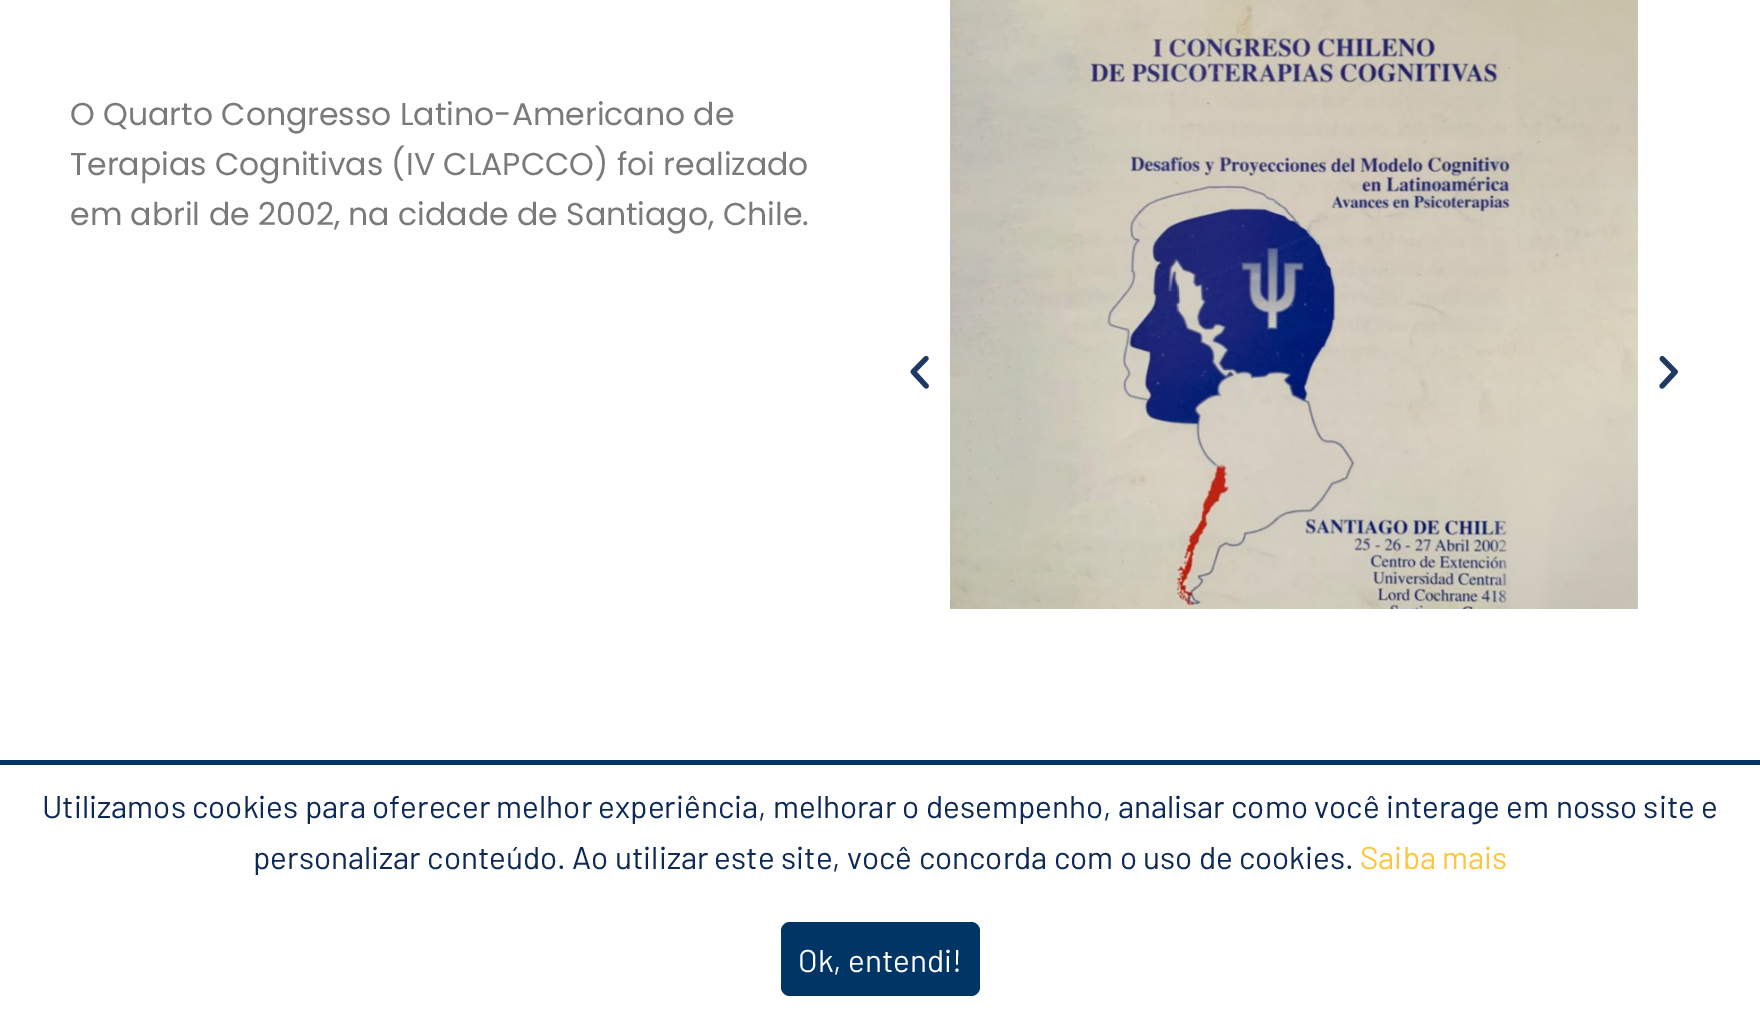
%!PS-Adobe-3.0
%%BoundingBox: 0 0 1760 1029
%%LanguageLevel: 3
%%Pages: 1
%%EndComments
%%BeginProlog
/rrect { 5 dict begin { /r /h /w /y /x } { exch def } forall
  x r add y moveto x w add y 2 copy h add r arct x w add y h add x 1 index r arct
  x y h add x y r arct x y 2 copy exch w add exch r arct closepath end } def
/drawimage { 5 dict begin { /h /w /y /x /name } { exch def } forall
  gsave x y translate w h scale
  w h 8 [w 0 0 h 0 0] name (r) file false 3 colorimage grestore end } def
%%EndProlog
%%BeginSetup
<< /PageSize [1760 1029] >> setpagedevice
%%EndSetup
%%Page: 1 1
0 1029 translate 1 -1 scale
4 setmiterlimit
1 setgray
0 0 1760 1029 rectfill
(images/1.raw) 910 355 19 34 drawimage
(images/2.raw) 950 0 688 609 drawimage
(images/3.raw) 1659 355 19 34 drawimage
0.004 0.208 0.396 setrgbcolor
0 760 1760 5 rectfill
781 922 199 74 9 rrect fill
/Poppins-Regular [31.5 0 0 -31.5 0 0] selectfont
0.478 setgray
70 125 moveto (O Quarto Congresso Latino-Americano de) show
70 175 moveto (Terapias Cognitivas \(IV CLAPCCO\) foi realizado) show
70 225 moveto (em abril de 2002, na cidade de Santiago, Chile.) show
/Barlow-Regular [31.5 0 0 -31.5 0 0] selectfont
0.047 0.161 0.341 setrgbcolor
42 818 moveto (Utilizamos cookies para oferecer melhor experiência, melhorar o desempenho, analisar como você interage em nosso site e) show
253 869 moveto (personalizar conteúdo. Ao utilizar este site, você concorda com o uso de cookies.) show
1 0.769 0.235 setrgbcolor
1360 869 moveto (Saiba mais) show
1 setgray
798 972 moveto (Ok, entendi!) show
showpage
%%EOF
